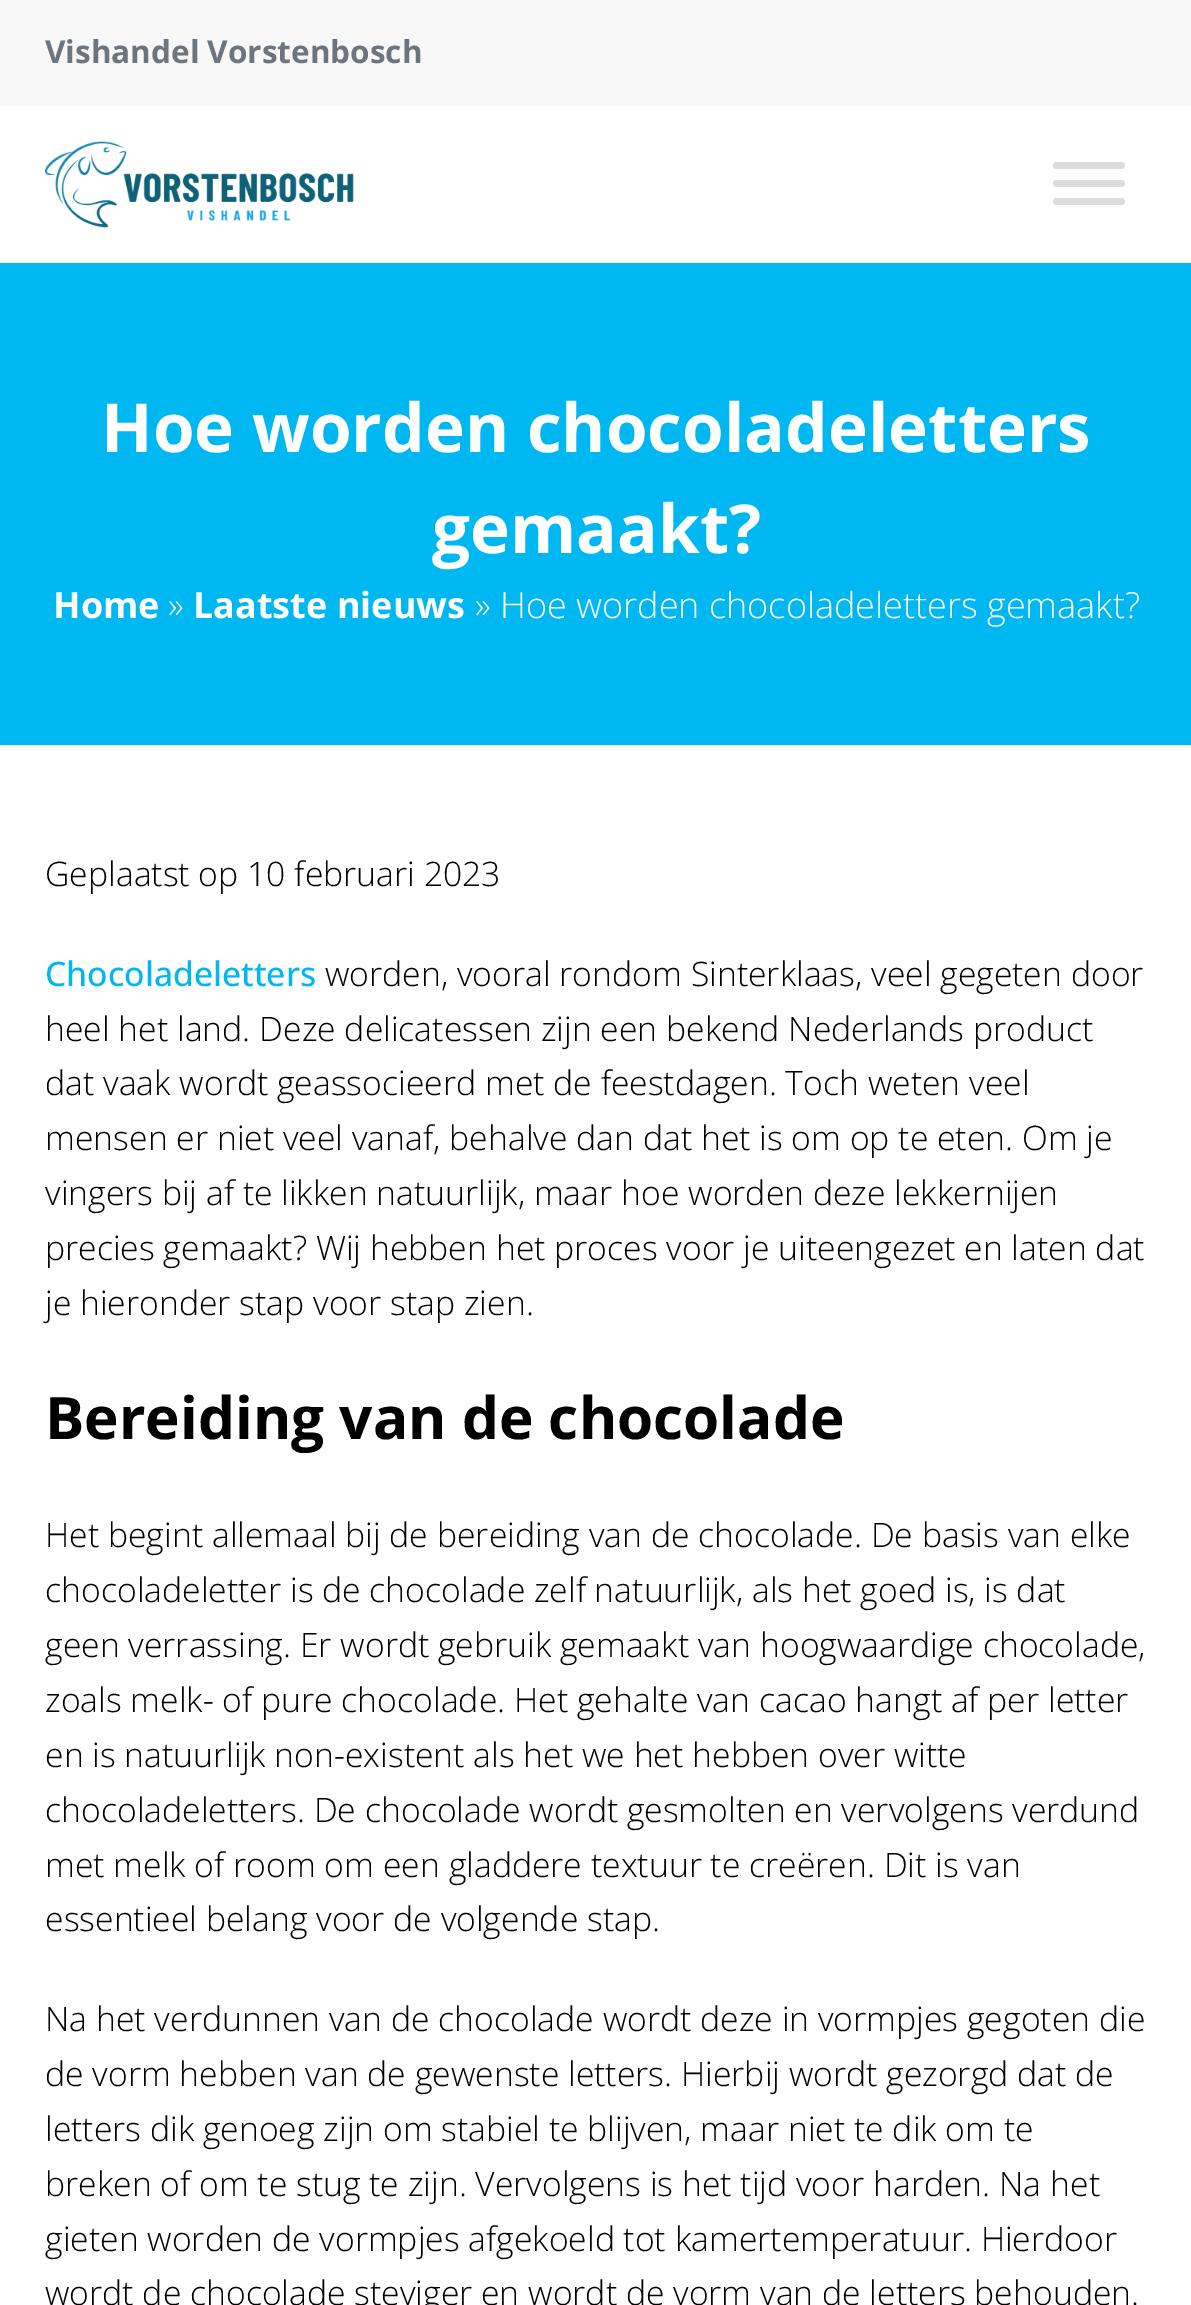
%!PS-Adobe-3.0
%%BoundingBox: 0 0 1191 2305
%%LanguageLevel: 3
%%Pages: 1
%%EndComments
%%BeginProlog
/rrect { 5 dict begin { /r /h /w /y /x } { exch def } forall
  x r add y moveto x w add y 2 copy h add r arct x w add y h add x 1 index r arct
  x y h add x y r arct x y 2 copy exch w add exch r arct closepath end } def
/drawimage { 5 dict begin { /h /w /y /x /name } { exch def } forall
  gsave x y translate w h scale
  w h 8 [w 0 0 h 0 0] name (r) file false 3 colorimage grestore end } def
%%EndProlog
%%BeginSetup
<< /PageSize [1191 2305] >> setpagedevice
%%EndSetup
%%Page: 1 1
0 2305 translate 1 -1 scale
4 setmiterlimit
1 setgray
0 0 1191 2305 rectfill
0.973 setgray
0 0 1191 106 rectfill
(images/1.raw) 45 141 309 87 drawimage
0.867 setgray
1053 162 72 7 3.5 rrect fill
1053 180 72 7 3.5 rrect fill
1053 198 72 7 3.5 rrect fill
0 0.722 0.945 setrgbcolor
0 263 1191 482 rectfill
/OpenSans-Bold [31.5 0 0 -31.5 0 0] selectfont
0.424 0.459 0.49 setrgbcolor
45 63 moveto (Vishandel Vorstenbosch) show
/OpenSans-Bold [67.5 0 0 -67.5 0 0] selectfont
1 setgray
101 452 moveto (Hoe worden chocoladeletters) show
432 553 moveto (gemaakt?) show
/OpenSans-Bold [36 0 0 -36 0 0] selectfont
53 618 moveto (Home) show
/OpenSans-Light [36 0 0 -36 0 0] selectfont
168 618 moveto (») show
/OpenSans-Bold [36 0 0 -36 0 0] selectfont
193 618 moveto (Laatste nieuws) show
/OpenSans-Light [36 0 0 -36 0 0] selectfont
475 618 moveto (» Hoe worden chocoladeletters gemaakt?) show
/OpenSans-Light [33.75 0 0 -33.75 0 0] selectfont
0 setgray
45 886 moveto (Geplaatst op 10 februari 2023) show
/OpenSans-Medium [33.75 0 0 -33.75 0 0] selectfont
0 0.722 0.945 setrgbcolor
45 986 moveto (Chocoladeletters) show
/OpenSans-Light [33.75 0 0 -33.75 0 0] selectfont
0 setgray
325 986 moveto (worden, vooral rondom Sinterklaas, veel gegeten door) show
45 1041 moveto (heel het land. Deze delicatessen zijn een bekend Nederlands product) show
45 1095 moveto (dat vaak wordt geassocieerd met de feestdagen. Toch weten veel) show
45 1150 moveto (mensen er niet veel vanaf, behalve dan dat het is om op te eten. Om je) show
45 1205 moveto (vingers bij af te likken natuurlijk, maar hoe worden deze lekkernijen) show
45 1260 moveto (precies gemaakt? Wij hebben het proces voor je uiteengezet en laten dat) show
45 1315 moveto (je hieronder stap voor stap zien.) show
/OpenSans-Bold [58.5 0 0 -58.5 0 0] selectfont
45 1439 moveto (Bereiding van de chocolade) show
/OpenSans-Light [33.75 0 0 -33.75 0 0] selectfont
45 1547 moveto (Het begint allemaal bij de bereiding van de chocolade. De basis van elke) show
45 1602 moveto (chocoladeletter is de chocolade zelf natuurlijk, als het goed is, is dat) show
45 1657 moveto (geen verrassing. Er wordt gebruik gemaakt van hoogwaardige chocolade,) show
45 1712 moveto (zoals melk- of pure chocolade. Het gehalte van cacao hangt af per letter) show
45 1767 moveto (en is natuurlijk non-existent als het we het hebben over witte) show
45 1822 moveto (chocoladeletters. De chocolade wordt gesmolten en vervolgens verdund) show
45 1877 moveto (met melk of room om een gladdere textuur te creëren. Dit is van) show
45 1931 moveto (essentieel belang voor de volgende stap.) show
45 2031 moveto (Na het verdunnen van de chocolade wordt deze in vormpjes gegoten die) show
45 2086 moveto (de vorm hebben van de gewenste letters. Hierbij wordt gezorgd dat de) show
45 2141 moveto (letters dik genoeg zijn om stabiel te blijven, maar niet te dik om te) show
45 2196 moveto (breken of om te stug te zijn. Vervolgens is het tijd voor harden. Na het) show
45 2251 moveto (gieten worden de vormpjes afgekoeld tot kamertemperatuur. Hierdoor) show
45 2305 moveto (wordt de chocolade steviger en wordt de vorm van de letters behouden.) show
showpage
%%EOF
